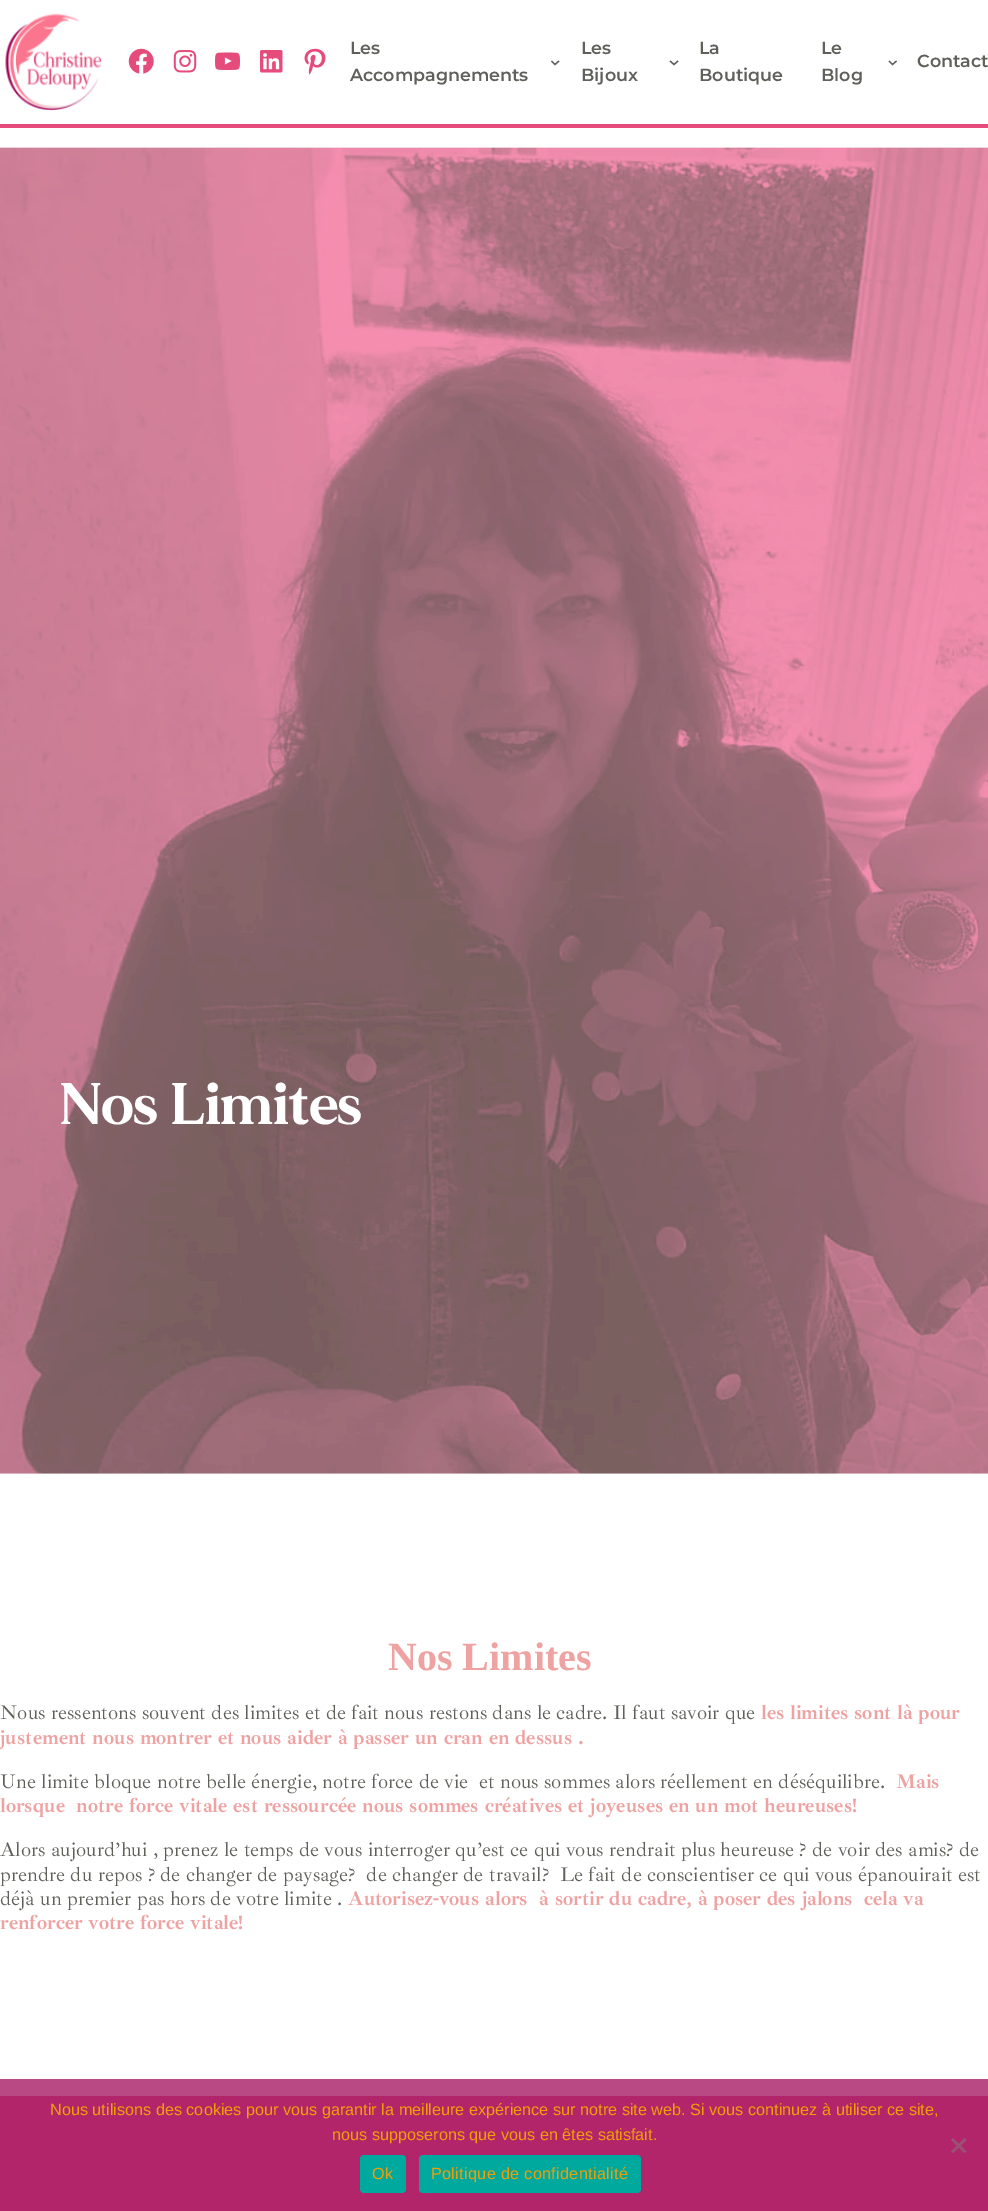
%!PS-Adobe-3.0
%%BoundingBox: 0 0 988 2211
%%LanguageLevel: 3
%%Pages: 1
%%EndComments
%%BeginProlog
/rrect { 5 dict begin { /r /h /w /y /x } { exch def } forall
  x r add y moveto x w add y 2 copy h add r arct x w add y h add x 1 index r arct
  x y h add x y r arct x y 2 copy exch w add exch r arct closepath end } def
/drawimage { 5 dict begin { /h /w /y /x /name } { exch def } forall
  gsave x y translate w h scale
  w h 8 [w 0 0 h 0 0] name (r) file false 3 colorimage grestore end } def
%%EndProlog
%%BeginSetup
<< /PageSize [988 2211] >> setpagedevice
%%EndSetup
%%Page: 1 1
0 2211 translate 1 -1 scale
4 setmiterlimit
1 setgray
0 0 988 2211 rectfill
0.722 0.286 0.522 setrgbcolor
0 2079 988 17 rectfill
0.898 0.298 0.486 setrgbcolor
0 124 988 4 rectfill
(images/1.raw) 5 13 97 98 drawimage
(images/2.raw) 128 48 26 26 drawimage
(images/3.raw) 173 50 24 23 drawimage
(images/4.raw) 215 52 25 19 drawimage
(images/5.raw) 260 50 23 23 drawimage
(images/6.raw) 304 48 22 27 drawimage
0.376 0.376 0.357 setrgbcolor
1.3 setlinewidth
newpath 551.5 61 moveto 555 64.5 lineto 559 61 lineto stroke
newpath 670 61 moveto 674 64.5 lineto 678 61 lineto stroke
newpath 889 61 moveto 892.5 64.5 lineto 896.5 61 lineto stroke
(images/7.raw) 0 147 988 1327 drawimage
0.702 0.145 0.42 setrgbcolor
0 2096 988 115 rectfill
0.6 0.322 0.463 setrgbcolor
newpath 964.5 2138 moveto 966.5 2140 lineto 953 2153 lineto 951 2151.5 lineto closepath fill
newpath 951 2140 moveto 953 2138 lineto 966.5 2151.5 lineto 964.5 2153 lineto closepath fill
0 0.663 0.616 setrgbcolor
360 2155 46 38 4 rrect fill
419 2155 222 38 4 rrect fill
/Montserrat-SemiBold [17.5 0 0 -17.5 0 0] selectfont
0.376 0.376 0.357 setrgbcolor
350 54 moveto (Les) show
350 81 moveto (Accompagnements) show
581 54 moveto (Les) show
581 81 moveto (Bijoux) show
699 54 moveto (La) show
699 81 moveto (Boutique) show
821 54 moveto (Le) show
821 81 moveto (Blog) show
917 67 moveto (Contact) show
/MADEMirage-Bold [58.5 0 0 -58.5 0 0] selectfont
1 setgray
59 1124 moveto (Nos Limites) show
/LiberationSerif-Bold [40 0 0 -40 0 0] selectfont
0.933 0.635 0.635 setrgbcolor
388 1670 moveto (Nos Limites) show
/IbarraRealNova-Regular [20.2 0 0 -20.2 0 0] selectfont
0.376 0.376 0.357 setrgbcolor
0 1719 moveto (Nous ressentons souvent des limites et de fait nous restons dans le cadre. Il faut savoir que) show
/IbarraRealNova-Bold [20.2 0 0 -20.2 0 0] selectfont
0.933 0.635 0.635 setrgbcolor
761 1719 moveto (les limites sont là pour) show
0 1744 moveto (justement nous montrer et nous aider à passer un cran en dessus .) show
/IbarraRealNova-Regular [20.2 0 0 -20.2 0 0] selectfont
0.376 0.376 0.357 setrgbcolor
0 1788 moveto (Une limite bloque notre belle énergie, notre force de vie  et nous sommes alors réellement en déséquilibre.) show
/IbarraRealNova-Bold [20.2 0 0 -20.2 0 0] selectfont
0.933 0.635 0.635 setrgbcolor
896 1788 moveto (Mais) show
0 1812 moveto (lorsque  notre force vitale est ressourcée nous sommes créatives et joyeuses en un mot heureuses!) show
/IbarraRealNova-Regular [20.2 0 0 -20.2 0 0] selectfont
0.376 0.376 0.357 setrgbcolor
0 1856 moveto (Alors aujourd’hui , prenez le temps de vous interroger qu’est ce qui vous rendrait plus heureuse ? de voir des amis? de) show
0 1881 moveto (prendre du repos ? de changer de paysage?  de changer de travail?  Le fait de conscientiser ce qui vous épanouirait est) show
0 1905 moveto (déjà un premier pas hors de votre limite .) show
/IbarraRealNova-Bold [20.2 0 0 -20.2 0 0] selectfont
0.933 0.635 0.635 setrgbcolor
348 1905 moveto (Autorisez-vous alors  à sortir du cadre, à poser des jalons  cela va) show
0 1929 moveto (renforcer votre force vitale!) show
/LiberationSans-Regular [16.25 0 0 -16.25 0 0] selectfont
0.949 0.624 0.02 setrgbcolor
50 2115 moveto (Nous utilisons des cookies pour vous garantir la meilleure expérience sur notre site web. Si vous continuez à utiliser ce site,) show
332 2140 moveto (nous supposerons que vous en êtes satisfait.) show
372 2179 moveto 0.3 0 (Ok) ashow
431 2179 moveto 0.3 0 (Politique de confidentialité) ashow
showpage
%%EOF
